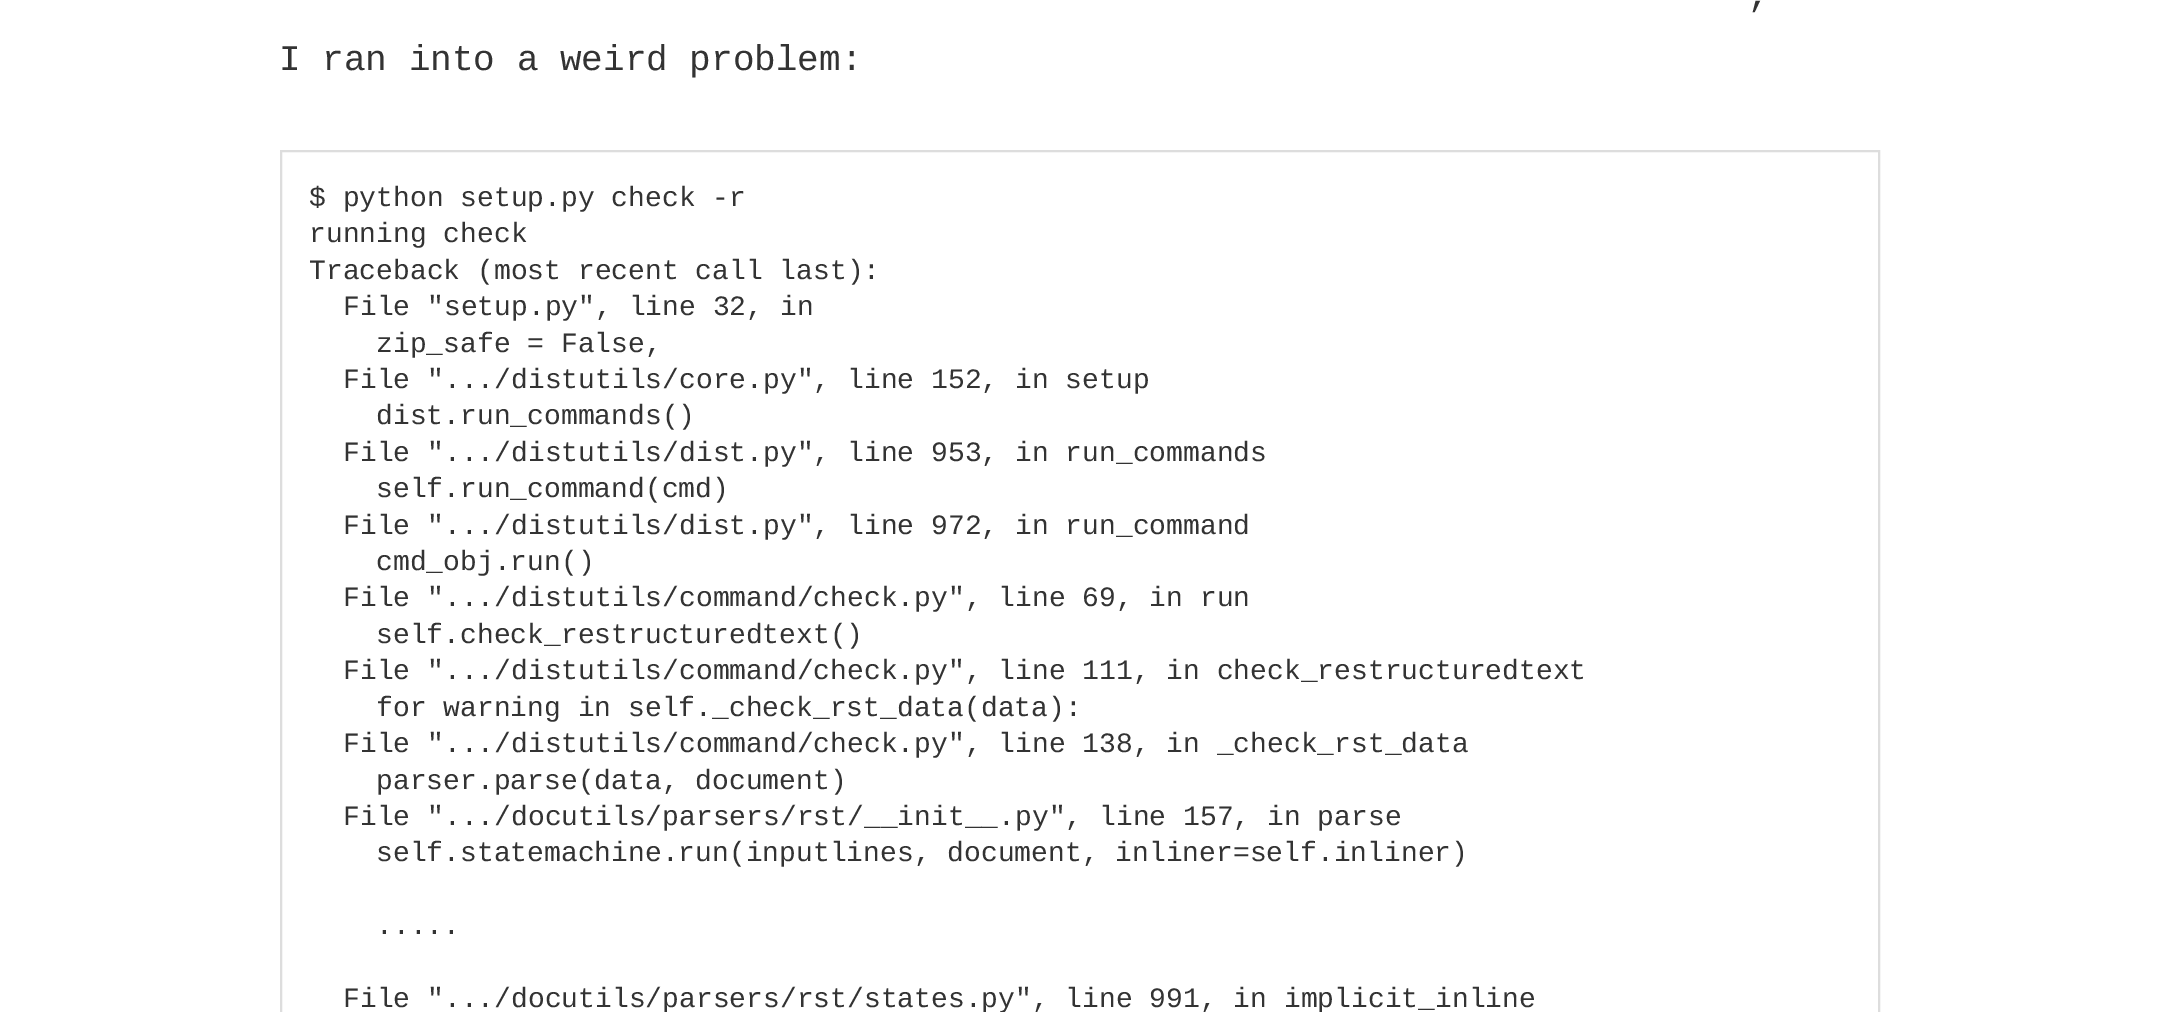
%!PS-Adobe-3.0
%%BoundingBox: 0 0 2158 1012
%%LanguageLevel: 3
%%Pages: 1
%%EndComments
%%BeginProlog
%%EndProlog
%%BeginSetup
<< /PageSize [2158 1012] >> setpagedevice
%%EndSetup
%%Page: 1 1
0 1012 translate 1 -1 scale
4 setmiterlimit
1 setgray
0 0 2158 1012 rectfill
0.867 setgray
2 setlinewidth
281 151 1598 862 rectstroke
/LiberationMono-Regular [36 0 0 -36 0 0] selectfont
0.2 setgray
1748 6 moveto (,) show
279 70 moveto (I ran into a weird problem:) show
/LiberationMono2-Regular [28 0 0 -28 0 0] selectfont
309 206 moveto ($ python setup.py check -r) show
309 242 moveto (running check) show
309 279 moveto (Traceback \(most recent call last\):) show
343 315 moveto (File "setup.py", line 32, in) show
376 352 moveto (zip_safe = False,) show
343 388 moveto (File ".../distutils/core.py", line 152, in setup) show
376 424 moveto (dist.run_commands\(\)) show
343 461 moveto (File ".../distutils/dist.py", line 953, in run_commands) show
376 497 moveto (self.run_command\(cmd\)) show
343 534 moveto (File ".../distutils/dist.py", line 972, in run_command) show
376 570 moveto (cmd_obj.run\(\)) show
343 606 moveto (File ".../distutils/command/check.py", line 69, in run) show
376 643 moveto (self.check_restructuredtext\(\)) show
343 679 moveto (File ".../distutils/command/check.py", line 111, in check_restructuredtext) show
376 716 moveto (for warning in self._check_rst_data\(data\):) show
343 752 moveto (File ".../distutils/command/check.py", line 138, in _check_rst_data) show
376 789 moveto (parser.parse\(data, document\)) show
343 825 moveto (File ".../docutils/parsers/rst/__init__.py", line 157, in parse) show
376 861 moveto (self.statemachine.run\(inputlines, document, inliner=self.inliner\)) show
376 934 moveto (.....) show
343 1007 moveto (File ".../docutils/parsers/rst/states.py", line 991, in implicit_inline) show
showpage
%%EOF
